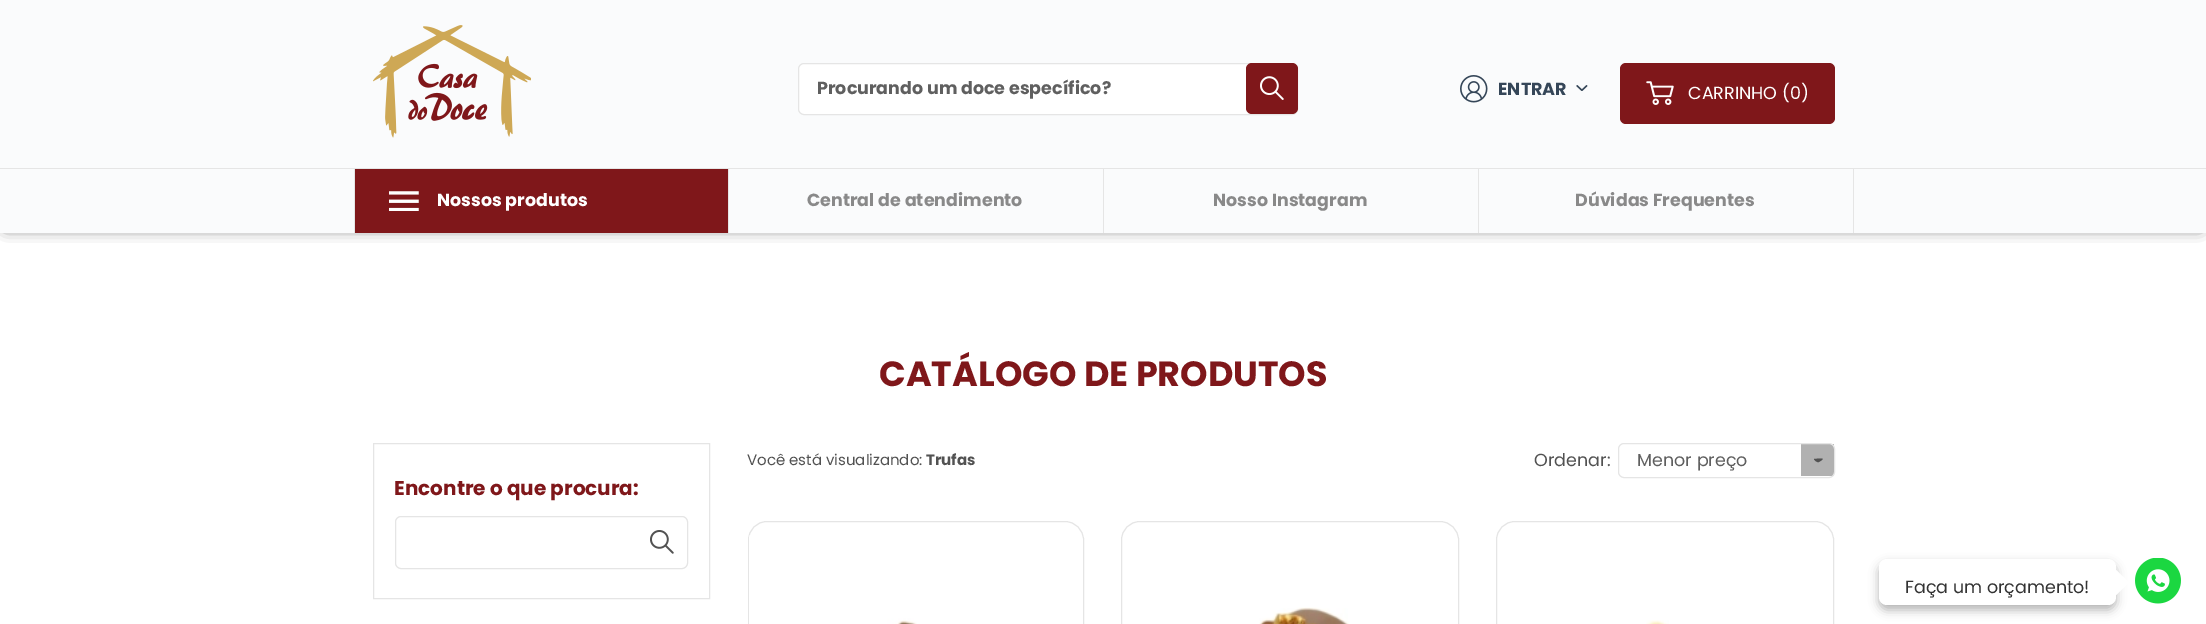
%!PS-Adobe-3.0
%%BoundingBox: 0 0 2206 624
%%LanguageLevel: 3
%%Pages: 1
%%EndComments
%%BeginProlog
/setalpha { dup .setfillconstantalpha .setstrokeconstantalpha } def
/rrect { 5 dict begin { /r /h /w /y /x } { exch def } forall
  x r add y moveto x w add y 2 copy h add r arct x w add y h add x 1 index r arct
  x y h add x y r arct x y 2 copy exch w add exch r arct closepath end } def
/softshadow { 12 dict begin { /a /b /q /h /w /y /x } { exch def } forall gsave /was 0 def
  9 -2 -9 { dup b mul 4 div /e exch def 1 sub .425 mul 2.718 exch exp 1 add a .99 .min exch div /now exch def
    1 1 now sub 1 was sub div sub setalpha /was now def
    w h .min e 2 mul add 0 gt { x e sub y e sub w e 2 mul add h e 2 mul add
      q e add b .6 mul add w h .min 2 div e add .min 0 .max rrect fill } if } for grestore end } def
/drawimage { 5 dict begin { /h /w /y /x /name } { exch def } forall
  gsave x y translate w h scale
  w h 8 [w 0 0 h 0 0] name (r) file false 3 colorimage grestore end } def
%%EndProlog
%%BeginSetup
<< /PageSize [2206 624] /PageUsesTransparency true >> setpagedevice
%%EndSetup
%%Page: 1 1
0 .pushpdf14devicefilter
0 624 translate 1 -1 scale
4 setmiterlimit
1 setgray
0 0 2206 624 rectfill
0 setgray
6 6 2194 220 0 7.5 1 softshadow
0.98 0.984 0.988 setrgbcolor
0 0 2206 233 rectfill
(images/1.raw) 373 25 158 113 drawimage
1 setgray
798.5 63.5 499 51 5.5 rrect gsave fill grestore
0.898 setgray
stroke
0.498 0.09 0.102 setrgbcolor
1246 63 52 51 6 rrect fill
(images/2.raw) 1260 76 24 24 drawimage
(images/3.raw) 1576 85 12 6 drawimage
(images/4.raw) 1460 75 28 28 drawimage
1620 63 215 61 6 rrect fill
(images/5.raw) 1646 81 28 24 drawimage
0.898 setgray
0 168 2206 1 rectfill
0.498 0.09 0.102 setrgbcolor
355 169 373 64 rectfill
0.898 setgray
728 169 1 64 rectfill
354 169 1 64 rectfill
(images/6.raw) 389 191 30 20 drawimage
1103 169 1 64 rectfill
1478 169 1 64 rectfill
1853 169 1 64 rectfill
gsave
1618 443 217 35 6 rrect clip newpath
0.694 setgray
1801 444 33 32 rectfill
grestore
0.322 setgray
newpath 1819 462 moveto 1822.5 459.5 1825 458.5 1819.5 458.5 curveto 1814 459 lineto 1814 460 1817.5 463 1819 462 curveto closepath eofill
0.898 setgray
1618.5 443.5 216 34 5.5 rrect stroke
748.5 521.5 335 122 18.5 rrect stroke
(images/7.raw) 749 535 168 89 drawimage
1121.5 521.5 337 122 18.5 rrect stroke
(images/8.raw) 1259 607 90 17 drawimage
1496.5 521.5 337 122 18.5 rrect stroke
(images/9.raw) 1646 620 23 4 drawimage
373.5 443.5 336 155 rectstroke
395.5 516.5 292 52 5.5 rrect stroke
(images/10.raw) 650 530 24 24 drawimage
0 setgray
1879 564 237 46 8 5 0.3 softshadow
1 setgray
1879 559 237 46 8 rrect fill
newpath 2116 595 moveto 2116 570 lineto 2129 582.5 lineto closepath fill
(images/11.raw) 2135 558 46 46 drawimage
/Poppins-Bold [17.5 0 0 -17.5 0 0] selectfont
0.373 setgray
817 94 moveto (Procurando um doce específico?) show
0.208 0.275 0.345 setrgbcolor
1498 95 moveto (ENTRAR) show
/Poppins-Regular [17.5 0 0 -17.5 0 0] selectfont
1 setgray
1688 99 moveto (CARRINHO \(0\)) show
/Poppins-Bold [17.5 0 0 -17.5 0 0] selectfont
437 206 moveto (Nossos produtos) show
0.537 setgray
807 206 moveto (Central de atendimento) show
1213 206 moveto (Nosso Instagram) show
1575 206 moveto (Dúvidas Frequentes) show
/Poppins-Bold [35 0 0 -35 0 0] selectfont
0.498 0.09 0.102 setrgbcolor
879 386 moveto (CATÁLOGO DE PRODUTOS) show
/Poppins-Regular [15 0 0 -15 0 0] selectfont
0.322 setgray
747 465 moveto (Você está visualizando:) show
/Poppins-Bold [15 0 0 -15 0 0] selectfont
926 465 moveto (Trufas) show
/Poppins-Regular [17.5 0 0 -17.5 0 0] selectfont
1534 466 moveto (Ordenar:) show
0.373 setgray
1637 466 moveto (Menor preço) show
/Poppins-Bold [20 0 0 -20 0 0] selectfont
0.498 0.09 0.102 setrgbcolor
394 495 moveto (Encontre o que procura:) show
/Poppins-Regular [17.5 0 0 -17.5 0 0] selectfont
0.2 setgray
1905 593 moveto (Faça um orçamento!) show
.poppdf14devicefilter showpage
%%EOF
